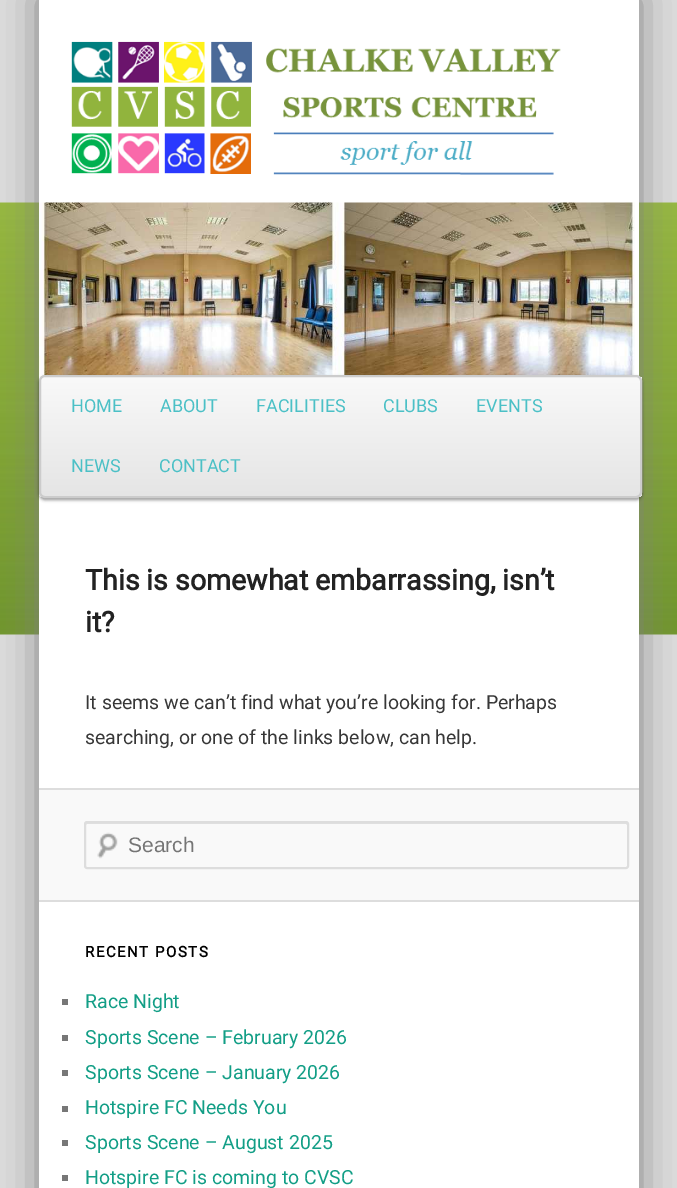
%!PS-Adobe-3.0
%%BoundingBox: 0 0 677 1188
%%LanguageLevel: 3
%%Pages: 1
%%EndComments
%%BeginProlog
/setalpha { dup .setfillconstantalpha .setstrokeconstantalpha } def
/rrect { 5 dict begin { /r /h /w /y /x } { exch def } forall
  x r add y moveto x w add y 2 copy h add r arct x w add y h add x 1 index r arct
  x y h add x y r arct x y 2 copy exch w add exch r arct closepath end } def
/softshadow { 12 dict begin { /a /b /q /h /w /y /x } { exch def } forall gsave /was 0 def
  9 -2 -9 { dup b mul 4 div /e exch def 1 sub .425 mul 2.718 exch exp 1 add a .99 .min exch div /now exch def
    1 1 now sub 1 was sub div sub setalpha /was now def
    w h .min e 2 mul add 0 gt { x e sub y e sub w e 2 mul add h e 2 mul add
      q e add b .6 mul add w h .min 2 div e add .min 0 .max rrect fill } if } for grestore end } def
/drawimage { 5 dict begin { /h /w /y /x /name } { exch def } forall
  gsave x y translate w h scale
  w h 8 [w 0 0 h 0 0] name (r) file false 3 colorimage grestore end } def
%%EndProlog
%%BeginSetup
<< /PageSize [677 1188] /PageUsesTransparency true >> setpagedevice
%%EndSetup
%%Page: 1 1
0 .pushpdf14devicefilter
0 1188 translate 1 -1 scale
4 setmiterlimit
0.867 setgray
0 0 677 1188 rectfill
(images/1.raw) 0 202 677 433 drawimage
0.502 setgray
39 -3 600 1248 0 19 1 softshadow
1 setgray
39 0 600 1188 rectfill
(images/2.raw) 71 41 490 134 drawimage
(images/3.raw) 39 202 596 173 drawimage
0 setgray
39 377 603 123 6 1.5 0.4 softshadow
gsave
39 375 603 123 6 rrect clip newpath
gsave newpath 39 377 moveto 642 377 lineto 642 497 lineto 39 497 lineto closepath clip newpath
<< /ShadingType 2 /ColorSpace /DeviceRGB /Coords [341 376 341 497] /Extend [true true] /Function << /FunctionType 2 /Domain [0 1] /C0 [0.976 0.976 0.976] /C1 [0.898 0.898 0.898] /N 1 >> >> shfill grestore
grestore
0.8 setgray
2 setlinewidth
40 376 601 121 5 rrect stroke
0.976 setgray
39 790 600 110 rectfill
0.867 setgray
39 788 600 2 rectfill
39 900 600 2 rectfill
(images/4.raw) 97 832 21 27 drawimage
0.878 setgray
newpath 87 824 moveto 626 824 lineto 627 825 lineto 627 824 627 823 626 822 curveto 88 822 lineto 86 823 lineto 86 825 lineto 86 824 86 824 87 824 curveto closepath fill
0.867 setgray
85 822 543 46 2 rrect stroke
0.467 setgray
62 999 6 6 rectfill
62 1035 6 6 rectfill
62 1070 6 6 rectfill
62 1106 6 6 rectfill
62 1140 6 6 rectfill
62 1175 6 6 rectfill
/Roboto-Regular [18 0 0 -18 0 0] selectfont
0.294 0.753 0.776 setrgbcolor
71 412 moveto (HOME) show
160 412 moveto (ABOUT) show
256 412 moveto (FACILITIES) show
383 412 moveto (CLUBS) show
476 412 moveto (EVENTS) show
71 472 moveto (NEWS) show
159 472 moveto (CONTACT) show
/Roboto-Bold [28.5 0 0 -28.5 0 0] selectfont
0.133 setgray
85 590 moveto (This is somewhat embarrassing, isn’t) show
85 632 moveto (it?) show
/Roboto-Regular [19.5 0 0 -19.5 0 0] selectfont
0.216 setgray
85 709 moveto (It seems we can’t find what you’re looking for. Perhaps) show
85 744 moveto (searching, or one of the links below, can help.) show
/LiberationSans-Regular [21 0 0 -21 0 0] selectfont
0.459 setgray
128 852 moveto (Search) show
/Roboto-Bold [15 0 0 -15 0 0] selectfont
0 setgray
85 957 moveto 1.5 0 (RECENT POSTS) ashow
/Roboto-Regular [19.5 0 0 -19.5 0 0] selectfont
0.071 0.62 0.525 setrgbcolor
85 1008 moveto (Race Night) show
85 1044 moveto (Sports Scene – February 2026) show
85 1079 moveto (Sports Scene – January 2026) show
85 1114 moveto (Hotspire FC Needs You) show
85 1149 moveto (Sports Scene – August 2025) show
85 1184 moveto (Hotspire FC is coming to CVSC) show
.poppdf14devicefilter showpage
%%EOF
